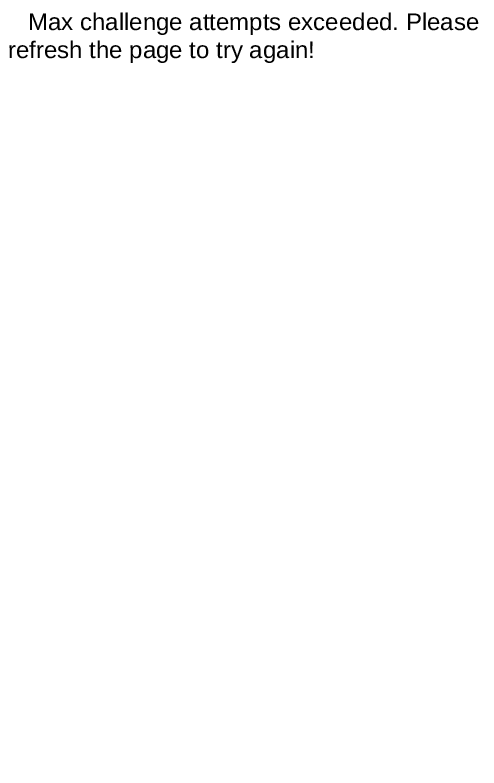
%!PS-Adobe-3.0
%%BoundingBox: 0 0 494 783
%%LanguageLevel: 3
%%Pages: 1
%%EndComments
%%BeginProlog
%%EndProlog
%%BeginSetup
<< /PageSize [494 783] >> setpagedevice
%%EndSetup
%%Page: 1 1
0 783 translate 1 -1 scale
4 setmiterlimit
1 setgray
0 0 494 783 rectfill
/LiberationSans-Regular [24 0 0 -24 0 0] selectfont
0 setgray
28 30 moveto (Max challenge attempts exceeded. Please) show
8 58 moveto (refresh the page to try again!) show
showpage
%%EOF
